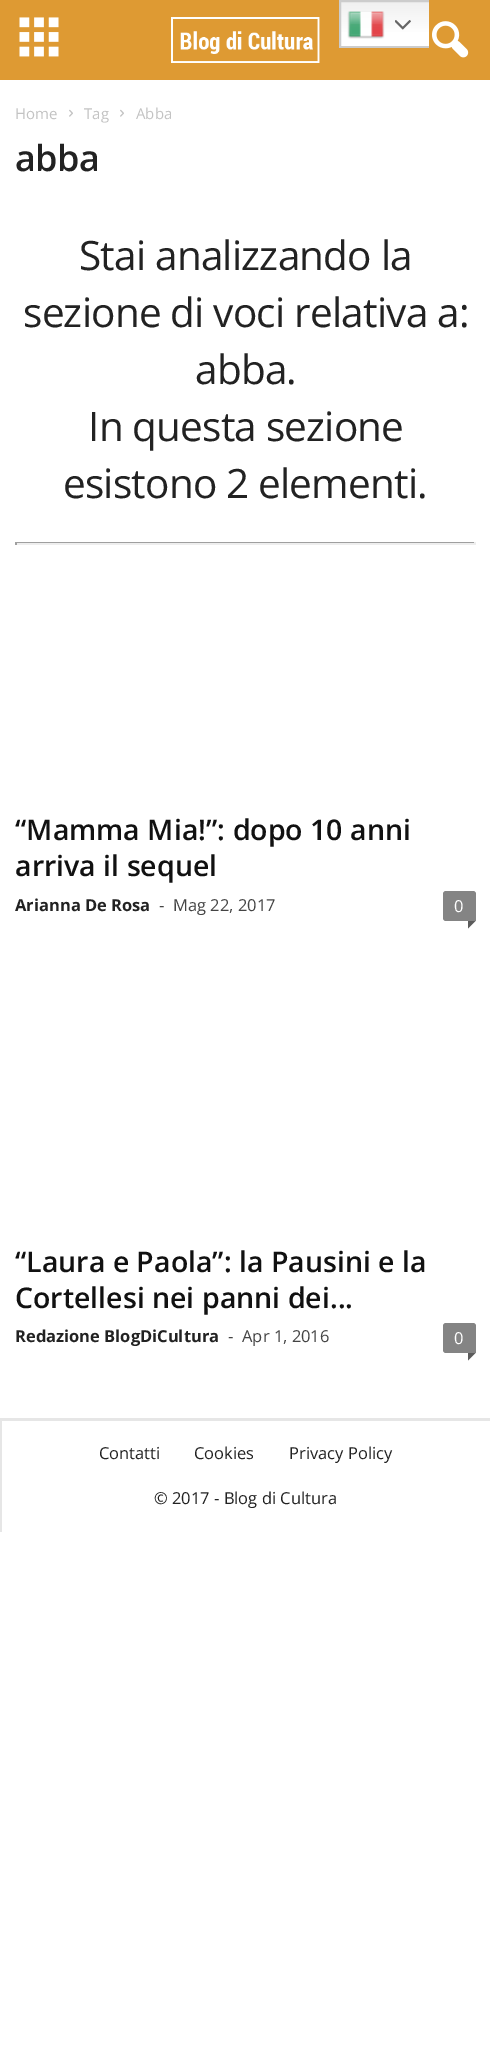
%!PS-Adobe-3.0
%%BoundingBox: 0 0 490 2071
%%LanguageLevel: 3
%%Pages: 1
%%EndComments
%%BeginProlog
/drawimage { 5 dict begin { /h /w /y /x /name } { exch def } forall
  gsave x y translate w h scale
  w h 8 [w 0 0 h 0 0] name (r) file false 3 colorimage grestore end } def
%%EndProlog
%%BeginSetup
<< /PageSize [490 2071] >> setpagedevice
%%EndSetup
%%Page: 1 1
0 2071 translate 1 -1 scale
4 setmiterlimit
1 setgray
0 0 490 2071 rectfill
0.871 0.604 0.2 setrgbcolor
0 0 490 80 rectfill
gsave newpath 341 2 moveto 429 2 lineto 429 46 lineto 341 46 lineto closepath clip newpath
<< /ShadingType 2 /ColorSpace /DeviceRGB /Coords [384 0 384 48] /Extend [true true] /Function << /FunctionType 3 /Domain [0 1] /Functions [<< /FunctionType 2 /Domain [0 1] /C0 [0.937 0.937 0.937] /C1 [1 1 1] /N 1 >> << /FunctionType 2 /Domain [0 1] /C0 [1 1 1] /C1 [1 1 1] /N 1 >>] /Bounds [0.7] /Encode [0 1 0 1] >> >> shfill grestore
(images/5.raw) 432 21 37 37 drawimage
gsave
339 0 90 48 rectclip
0.8 setgray
2 setlinewidth
340 1 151 46 rectstroke
grestore
(images/1.raw) 347 11 38 28 drawimage
(images/2.raw) 395 20 16 10 drawimage
(images/3.raw) 19 17 40 40 drawimage
(images/4.raw) 171 17 149 46 drawimage
(images/6.raw) 69 109 4 8 drawimage
(images/6.raw) 120 109 4 8 drawimage
0.624 setgray
15 542 461 1 rectfill
0.933 setgray
474 542 2 3 rectfill
15 543 461 2 rectfill
0.624 setgray
15 542 2 3 rectfill
0.518 setgray
newpath 446 891 moveto 473 891 lineto 474.5 891 476 892.5 476 894 curveto 476 921 lineto 446 921 lineto 444.5 921 443 919.5 443 918 curveto 443 894 lineto 443 892.5 444.5 891 446 891 curveto closepath fill
0.357 setgray
newpath 468 921 moveto 475.5 921 lineto 468 928.5 lineto closepath fill
0.518 setgray
newpath 446 1323 moveto 473 1323 lineto 474.5 1323 476 1324.5 476 1326 curveto 476 1353 lineto 446 1353 lineto 444.5 1353 443 1351.5 443 1350 curveto 443 1326 lineto 443 1324.5 444.5 1323 446 1323 curveto closepath fill
0.357 setgray
newpath 468 1353 moveto 475.5 1353 lineto 468 1360.5 lineto closepath fill
0.902 setgray
0 1418 490 3 rectfill
0 1421 2 111 rectfill
/OpenSans-Regular [15 0 0 -15 0 0] selectfont
0.765 setgray
15 119 moveto (Home) show
84 119 moveto (Tag) show
136 119 moveto (Abba) show
/OpenSans-SemiBold [36 0 0 -36 0 0] selectfont
0.133 setgray
15 171 moveto -0.5 0 (abba) ashow
/OpenSans-Regular [40.5 0 0 -40.5 0 0] selectfont
79 270 moveto -0.8 0 (Stai analizzando la) ashow
23 327 moveto -0.8 0 (sezione di voci relativa a:) ashow
195 384 moveto -0.8 0 (abba.) ashow
88 441 moveto -0.8 0 (In questa sezione) ashow
63 498 moveto -0.8 0 (esistono 2 elementi.) ashow
/OpenSans-SemiBold [28.5 0 0 -28.5 0 0] selectfont
0.067 setgray
15 840 moveto (“Mamma Mia!”: dopo 10 anni) show
15 876 moveto (arriva il sequel) show
/OpenSans-Bold [16.5 0 0 -16.5 0 0] selectfont
0.133 setgray
15 911 moveto (Arianna De Rosa) show
/OpenSans-Regular [16.5 0 0 -16.5 0 0] selectfont
0.267 setgray
159 911 moveto (-) show
173 911 moveto (Mag 22, 2017) show
1 setgray
454 912 moveto (0) show
/OpenSans-SemiBold [28.5 0 0 -28.5 0 0] selectfont
0.067 setgray
15 1272 moveto (“Laura e Paola”: la Pausini e la) show
15 1308 moveto (Cortellesi nei panni dei...) show
/OpenSans-Bold [16.5 0 0 -16.5 0 0] selectfont
0.133 setgray
15 1342 moveto (Redazione BlogDiCultura) show
/OpenSans-Regular [16.5 0 0 -16.5 0 0] selectfont
0.267 setgray
228 1342 moveto (-) show
242 1342 moveto (Apr 1, 2016) show
1 setgray
454 1344 moveto (0) show
0.133 setgray
99 1459 moveto (Contatti) show
194 1459 moveto (Cookies) show
289 1459 moveto (Privacy Policy) show
154 1504 moveto (© 2017 - Blog di Cultura) show
showpage
%%EOF
